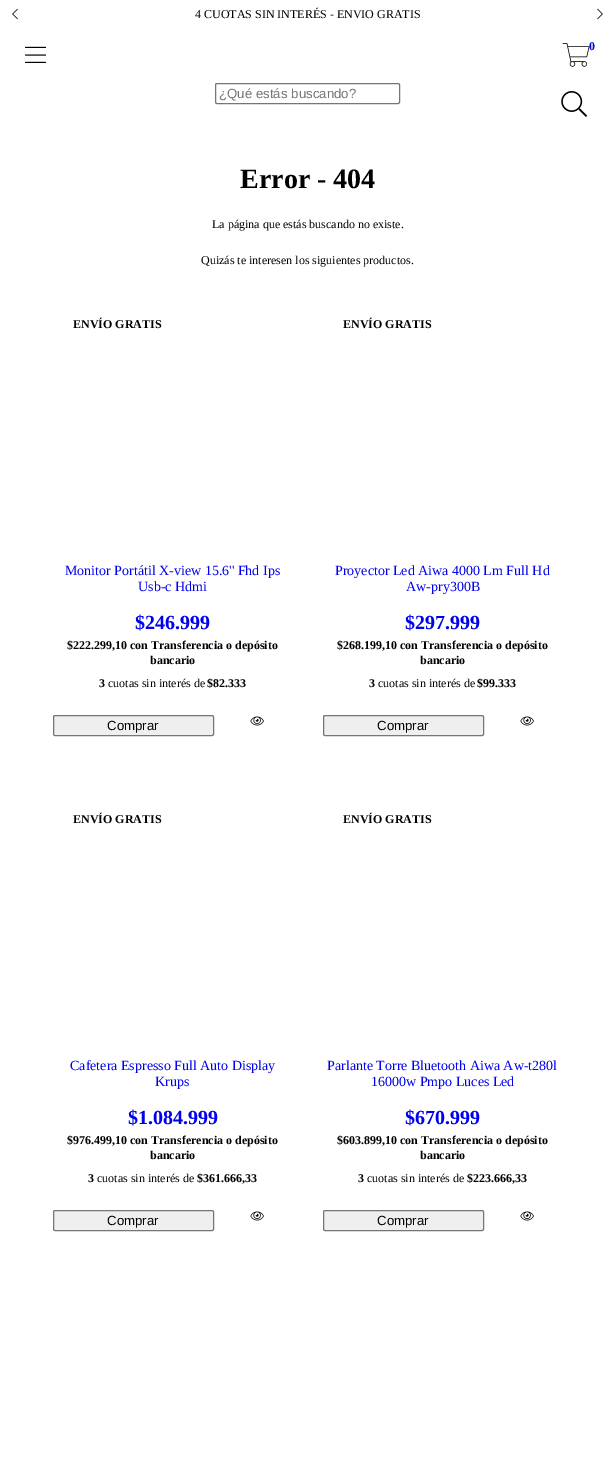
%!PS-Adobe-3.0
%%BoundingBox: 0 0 615 1472
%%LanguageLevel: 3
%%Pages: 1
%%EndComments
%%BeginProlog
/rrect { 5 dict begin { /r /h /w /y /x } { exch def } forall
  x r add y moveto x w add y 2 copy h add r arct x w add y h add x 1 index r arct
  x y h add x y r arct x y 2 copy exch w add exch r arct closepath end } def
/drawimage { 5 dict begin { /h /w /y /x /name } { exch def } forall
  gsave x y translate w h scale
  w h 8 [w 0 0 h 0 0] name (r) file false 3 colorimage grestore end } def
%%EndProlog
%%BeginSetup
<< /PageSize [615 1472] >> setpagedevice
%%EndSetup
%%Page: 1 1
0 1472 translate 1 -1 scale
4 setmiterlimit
1 setgray
0 0 615 1472 rectfill
(images/1.raw) 12 8 6 12 drawimage
(images/2.raw) 597 8 6 12 drawimage
(images/3.raw) 25 46 21 17 drawimage
(images/4.raw) 562 43 28 24 drawimage
0.463 setgray
215.5 83.5 184 20 1.5 rrect stroke
(images/5.raw) 561 91 26 26 drawimage
0.937 setgray
53.5 715.5 160 20 1.5 rrect gsave fill grestore
0.463 setgray
stroke
(images/6.raw) 250 716 14 10 drawimage
0.937 setgray
323.5 715.5 160 20 1.5 rrect gsave fill grestore
0.463 setgray
stroke
(images/6.raw) 520 716 14 10 drawimage
0.937 setgray
53.5 1210.5 160 20 1.5 rrect gsave fill grestore
0.463 setgray
stroke
(images/6.raw) 250 1211 14 10 drawimage
0.937 setgray
323.5 1210.5 160 20 1.5 rrect gsave fill grestore
0.463 setgray
stroke
(images/6.raw) 520 1211 14 10 drawimage
/LiberationSerif-Regular [12 0 0 -12 0 0] selectfont
0 setgray
195 18 moveto (4 CUOTAS SIN INTERÉS - ENVIO GRATIS) show
/LiberationSerif-Bold [12 0 0 -12 0 0] selectfont
0 0 0.933 setrgbcolor
589 50 moveto (0) show
/LiberationSans-Regular [13.25 0 0 -13.25 0 0] selectfont
0.459 setgray
219 98 moveto (¿Qué estás buscando?) show
/LiberationSerif-Bold [28 0 0 -28 0 0] selectfont
0 setgray
240 188 moveto (Error - 404) show
/LiberationSerif-Regular [12 0 0 -12 0 0] selectfont
212 228 moveto (La página que estás buscando no existe.) show
201 264 moveto (Quizás te interesen los siguientes productos.) show
/LiberationSerif-Bold [12 0 0 -12 0 0] selectfont
73 328 moveto (ENVÍO GRATIS) show
/LiberationSerif-Regular [14 0 0 -14 0 0] selectfont
0 0 0.933 setrgbcolor
65 575 moveto (Monitor Portátil X-view 15.6'' Fhd Ips) show
138 591 moveto (Usb-c Hdmi) show
/LiberationSerif-Bold [20 0 0 -20 0 0] selectfont
135 629 moveto ($246.999) show
/LiberationSerif-Bold [12 0 0 -12 0 0] selectfont
0 setgray
67 649 moveto ($222.299,10 con Transferencia o depósito) show
150 664 moveto (bancario) show
99 687 moveto (3) show
/LiberationSerif-Regular [12 0 0 -12 0 0] selectfont
108 687 moveto (cuotas sin interés de) show
/LiberationSerif-Bold [12 0 0 -12 0 0] selectfont
207 687 moveto ($82.333) show
/LiberationSans-Regular [13.25 0 0 -13.25 0 0] selectfont
107 730 moveto (Comprar) show
/LiberationSerif-Bold [12 0 0 -12 0 0] selectfont
343 328 moveto (ENVÍO GRATIS) show
/LiberationSerif-Regular [14 0 0 -14 0 0] selectfont
0 0 0.933 setrgbcolor
335 575 moveto (Proyector Led Aiwa 4000 Lm Full Hd) show
406 591 moveto (Aw-pry300B) show
/LiberationSerif-Bold [20 0 0 -20 0 0] selectfont
405 629 moveto ($297.999) show
/LiberationSerif-Bold [12 0 0 -12 0 0] selectfont
0 setgray
337 649 moveto ($268.199,10 con Transferencia o depósito) show
420 664 moveto (bancario) show
369 687 moveto (3) show
/LiberationSerif-Regular [12 0 0 -12 0 0] selectfont
378 687 moveto (cuotas sin interés de) show
/LiberationSerif-Bold [12 0 0 -12 0 0] selectfont
477 687 moveto ($99.333) show
/LiberationSans-Regular [13.25 0 0 -13.25 0 0] selectfont
377 730 moveto (Comprar) show
/LiberationSerif-Bold [12 0 0 -12 0 0] selectfont
73 823 moveto (ENVÍO GRATIS) show
/LiberationSerif-Regular [14 0 0 -14 0 0] selectfont
0 0 0.933 setrgbcolor
70 1070 moveto (Cafetera Espresso Full Auto Display) show
155 1086 moveto (Krups) show
/LiberationSerif-Bold [20 0 0 -20 0 0] selectfont
128 1124 moveto ($1.084.999) show
/LiberationSerif-Bold [12 0 0 -12 0 0] selectfont
0 setgray
67 1144 moveto ($976.499,10 con Transferencia o depósito) show
150 1159 moveto (bancario) show
88 1182 moveto (3) show
/LiberationSerif-Regular [12 0 0 -12 0 0] selectfont
97 1182 moveto (cuotas sin interés de) show
/LiberationSerif-Bold [12 0 0 -12 0 0] selectfont
197 1182 moveto ($361.666,33) show
/LiberationSans-Regular [13.25 0 0 -13.25 0 0] selectfont
107 1225 moveto (Comprar) show
/LiberationSerif-Bold [12 0 0 -12 0 0] selectfont
343 823 moveto (ENVÍO GRATIS) show
/LiberationSerif-Regular [14 0 0 -14 0 0] selectfont
0 0 0.933 setrgbcolor
327 1070 moveto (Parlante Torre Bluetooth Aiwa Aw-t280l) show
371 1086 moveto (16000w Pmpo Luces Led) show
/LiberationSerif-Bold [20 0 0 -20 0 0] selectfont
405 1124 moveto ($670.999) show
/LiberationSerif-Bold [12 0 0 -12 0 0] selectfont
0 setgray
337 1144 moveto ($603.899,10 con Transferencia o depósito) show
420 1159 moveto (bancario) show
358 1182 moveto (3) show
/LiberationSerif-Regular [12 0 0 -12 0 0] selectfont
367 1182 moveto (cuotas sin interés de) show
/LiberationSerif-Bold [12 0 0 -12 0 0] selectfont
467 1182 moveto ($223.666,33) show
/LiberationSans-Regular [13.25 0 0 -13.25 0 0] selectfont
377 1225 moveto (Comprar) show
showpage
%%EOF
